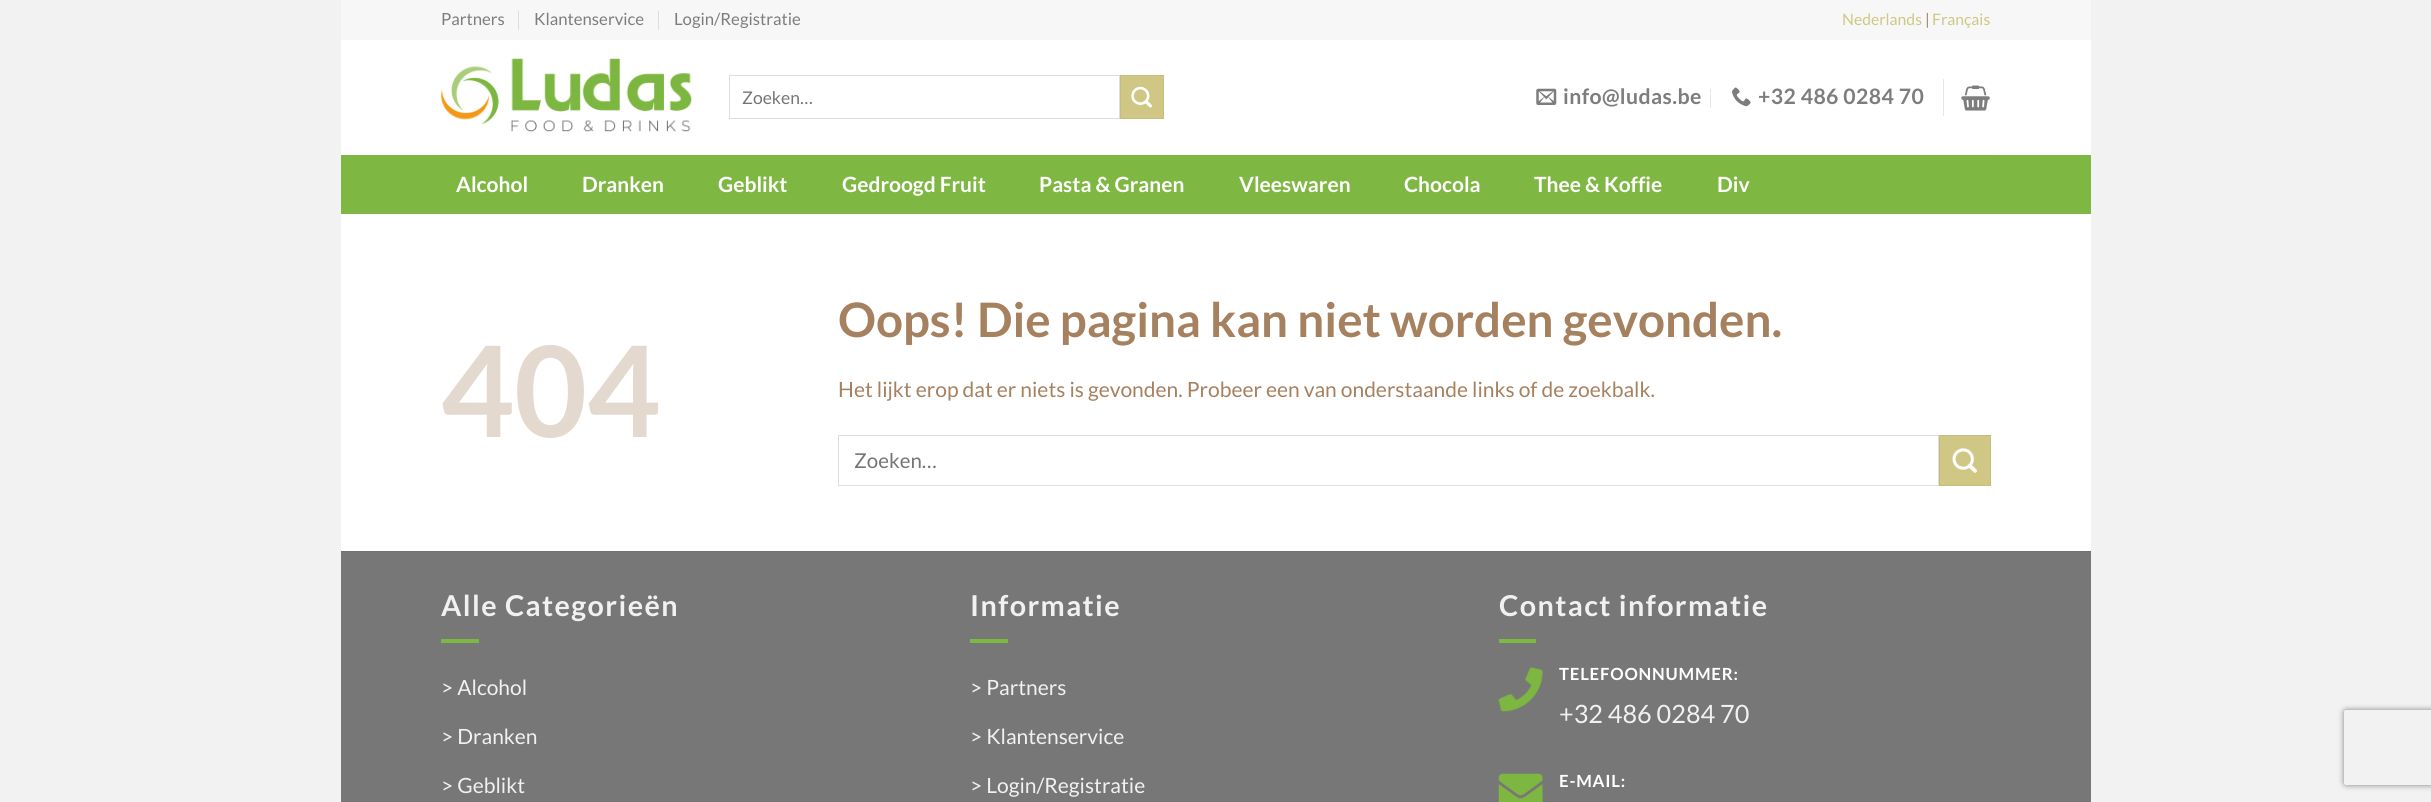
import math
import cairocffi as cairo

surface = cairo.ImageSurface(cairo.FORMAT_RGB24, 2431, 802)
ctx = cairo.Context(surface)
options = cairo.FontOptions()
options.set_hint_metrics(cairo.HINT_METRICS_OFF)
options.set_hint_style(cairo.HINT_STYLE_NONE)
ctx.set_font_options(options)
ctx.set_miter_limit(4)


def rgb(r, g, b):
    ctx.set_source_rgb(r / 255, g / 255, b / 255)


def face(family, size, italic, bold):
    ctx.select_font_face(family, cairo.FONT_SLANT_ITALIC if italic else cairo.FONT_SLANT_NORMAL, cairo.FONT_WEIGHT_BOLD if bold else cairo.FONT_WEIGHT_NORMAL)
    ctx.set_font_size(size)


def label(x, y, s):
    ctx.move_to(x, y)
    ctx.show_text(s)


def tracked(x, y, s, letter, word):
    ctx.move_to(x, y)
    for ch in s:
        ctx.show_text(ch)
        ctx.rel_move_to(letter + word * (ch == ' '), 0)


def rect(x, y, w, h):
    ctx.rectangle(x, y, w, h)
    ctx.fill()


def rrect(x, y, w, h, r):
    ctx.new_sub_path()
    for i, (u, v) in enumerate([(x + w - r, y + h - r), (x + r, y + h - r), (x + r, y + r), (x + w - r, y + r)]):
        ctx.arc(u, v, r, i * math.pi / 2, (i + 1) * math.pi / 2)
    ctx.close_path()


def soft_shadow(x, y, w, h, r, blur, alpha):
    ctx.push_group_with_content(cairo.CONTENT_ALPHA)
    ctx.set_operator(cairo.OPERATOR_SOURCE)
    for i in range(15, -16, -2):
        e = blur * i / 6
        if min(w, h) + 2 * e > 0:
            ctx.set_source_rgba(0, 0, 0, alpha * math.erfc((i - 1) / 8.5) / 2)
            rrect(x - e, y - e, w + 2 * e, h + 2 * e, max(0, min(r + e + blur * .6, min(w, h) / 2 + e)))
            ctx.fill()
    ctx.mask(ctx.pop_group())


def image(path, x, y, w, h):
    ctx.save()
    ctx.set_source_surface(cairo.ImageSurface.create_from_png(path), x, y)
    ctx.rectangle(x, y, w, h)
    ctx.fill()
    ctx.restore()


rgb(242, 242, 242)
ctx.paint()
rgb(255, 255, 255)
rect(341, 40, 1750, 511)
rgb(247, 247, 247)
rect(341, 0, 1750, 40)
face('Lato', 16.75, 0, 0)
rgb(125, 125, 125)
label(441, 25, 'Partners')
rgb(222, 222, 222)
rect(518, 11, 1, 19)
rgb(125, 125, 125)
label(534, 25, 'Klantenservice')
rgb(222, 222, 222)
rect(658, 11, 1, 19)
rgb(125, 125, 125)
label(674, 25, 'Login/Registratie')
face('Lato', 15.75, 0, 0)
rgb(207, 199, 131)
label(1842, 25, 'Nederlands')
rgb(166, 129, 96)
label(1925, 25, '|')
rgb(207, 199, 131)
label(1932, 25, 'Français')
image('image0.png', 441, 58, 251, 74)
ctx.rectangle(729.5, 75.5, 390, 43)
rgb(221, 221, 221)
ctx.set_line_width(1)
ctx.stroke()
face('Lato', 17.5, 0, 0)
rgb(117, 117, 117)
label(742, 104, 'Zoeken…')
rgb(207, 199, 131)
ctx.rectangle(1120.5, 75.5, 43, 43)
ctx.fill_preserve()
rgb(197, 189, 124)
ctx.stroke()
image('image1.png', 1131, 86, 21, 22)
image('image2.png', 1536, 88, 21, 17)
face('Lato', 21.25, 0, 1)
rgb(125, 125, 125)
tracked(1563, 104, 'info@ludas.be', 0.4, 0)
rgb(230, 230, 230)
rect(1710, 89, 1, 19)
image('image3.png', 1731, 87, 20, 20)
rgb(125, 125, 125)
tracked(1758, 104, '+32 486 0284 70', 0.4, 0)
rgb(230, 230, 230)
rect(1943, 79, 1, 37)
image('image4.png', 1961, 85, 29, 26)
rgb(126, 183, 66)
rect(341, 155, 1750, 59)
rgb(130, 178, 69)
rect(441, 155, 1550, 1)
face('Lato', 21, 0, 1)
rgb(255, 255, 255)
label(456, 192, 'Alcohol')
label(582, 192, 'Dranken')
label(718, 192, 'Geblikt')
label(842, 192, 'Gedroogd Fruit')
label(1039, 192, 'Pasta & Granen')
label(1239, 192, 'Vleeswaren')
label(1404, 192, 'Chocola')
label(1534, 192, 'Thee & Koffie')
label(1717, 192, 'Div')
face('Lato', 126, 0, 1)
rgb(228, 217, 207)
label(441, 437, '404')
face('Lato', 47.5, 0, 1)
rgb(166, 129, 96)
label(838, 337, 'Oops! Die pagina kan niet worden gevonden.')
face('Lato', 21, 0, 0)
label(838, 397, 'Het lijkt erop dat er niets is gevonden. Probeer een van onderstaande links of de zoekbalk.')
ctx.rectangle(838.5, 435.5, 1100, 50)
rgb(221, 221, 221)
ctx.stroke()
face('Lato', 20.5, 0, 0)
rgb(117, 117, 117)
label(854, 468, 'Zoeken…')
rgb(207, 199, 131)
ctx.rectangle(1939.5, 435.5, 51, 50)
ctx.fill_preserve()
rgb(197, 189, 124)
ctx.stroke()
image('image5.png', 1952, 448, 25, 25)
rgb(119, 119, 119)
rect(341, 552, 1750, 250)
rgb(113, 113, 113)
rect(341, 551, 1750, 1)
face('Lato', 28.75, 0, 1)
rgb(241, 241, 241)
tracked(441, 616, 'Alle Categorieën', 1.4, 0)
rgb(123, 185, 67)
rect(441, 639, 38, 4)
face('Lato', 21, 0, 0)
rgb(241, 241, 241)
label(441, 695, '> Alcohol')
label(441, 744, '> Dranken')
label(441, 793, '> Geblikt')
face('Lato', 28.75, 0, 1)
tracked(970, 616, 'Informatie', 1.4, 0)
rgb(123, 185, 67)
rect(970, 639, 38, 4)
face('Lato', 21, 0, 0)
rgb(241, 241, 241)
label(970, 695, '> Partners')
label(970, 744, '> Klantenservice')
label(970, 793, '> Login/Registratie')
face('Lato', 28.75, 0, 1)
tracked(1499, 616, 'Contact informatie', 1.4, 0)
rgb(123, 185, 67)
rect(1499, 639, 37, 4)
image('image6.png', 1498, 667, 45, 45)
face('Lato', 16.75, 0, 1)
rgb(255, 255, 255)
tracked(1559, 680, 'TELEFOONNUMMER:', 0.8, 0)
face('Lato', 25.25, 0, 0)
rgb(241, 241, 241)
label(1559, 723, '+32 486 0284 70')
image('image7.png', 1498, 773, 45, 29)
face('Lato', 16.75, 0, 1)
rgb(255, 255, 255)
tracked(1559, 787, 'E-MAIL:', 0.8, 0)
ctx.save()
ctx.set_fill_rule(cairo.FILL_RULE_EVEN_ODD)
ctx.new_path()
ctx.move_to(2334, 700)
ctx.line_to(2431, 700)
ctx.line_to(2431, 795)
ctx.line_to(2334, 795)
ctx.close_path()
ctx.move_to(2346.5, 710)
ctx.line_to(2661.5, 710)
ctx.curve_to(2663, 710, 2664, 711, 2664, 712.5)
ctx.line_to(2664, 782.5)
ctx.curve_to(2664, 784, 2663, 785, 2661.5, 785)
ctx.line_to(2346.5, 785)
ctx.curve_to(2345, 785, 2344, 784, 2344, 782.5)
ctx.line_to(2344, 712.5)
ctx.curve_to(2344, 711, 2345, 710, 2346.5, 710)
ctx.close_path()
ctx.clip()
rgb(128, 128, 128)
soft_shadow(2344, 710, 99, 75, 2.5, 3, 1)
ctx.restore()
surface.write_to_png('render.png')
